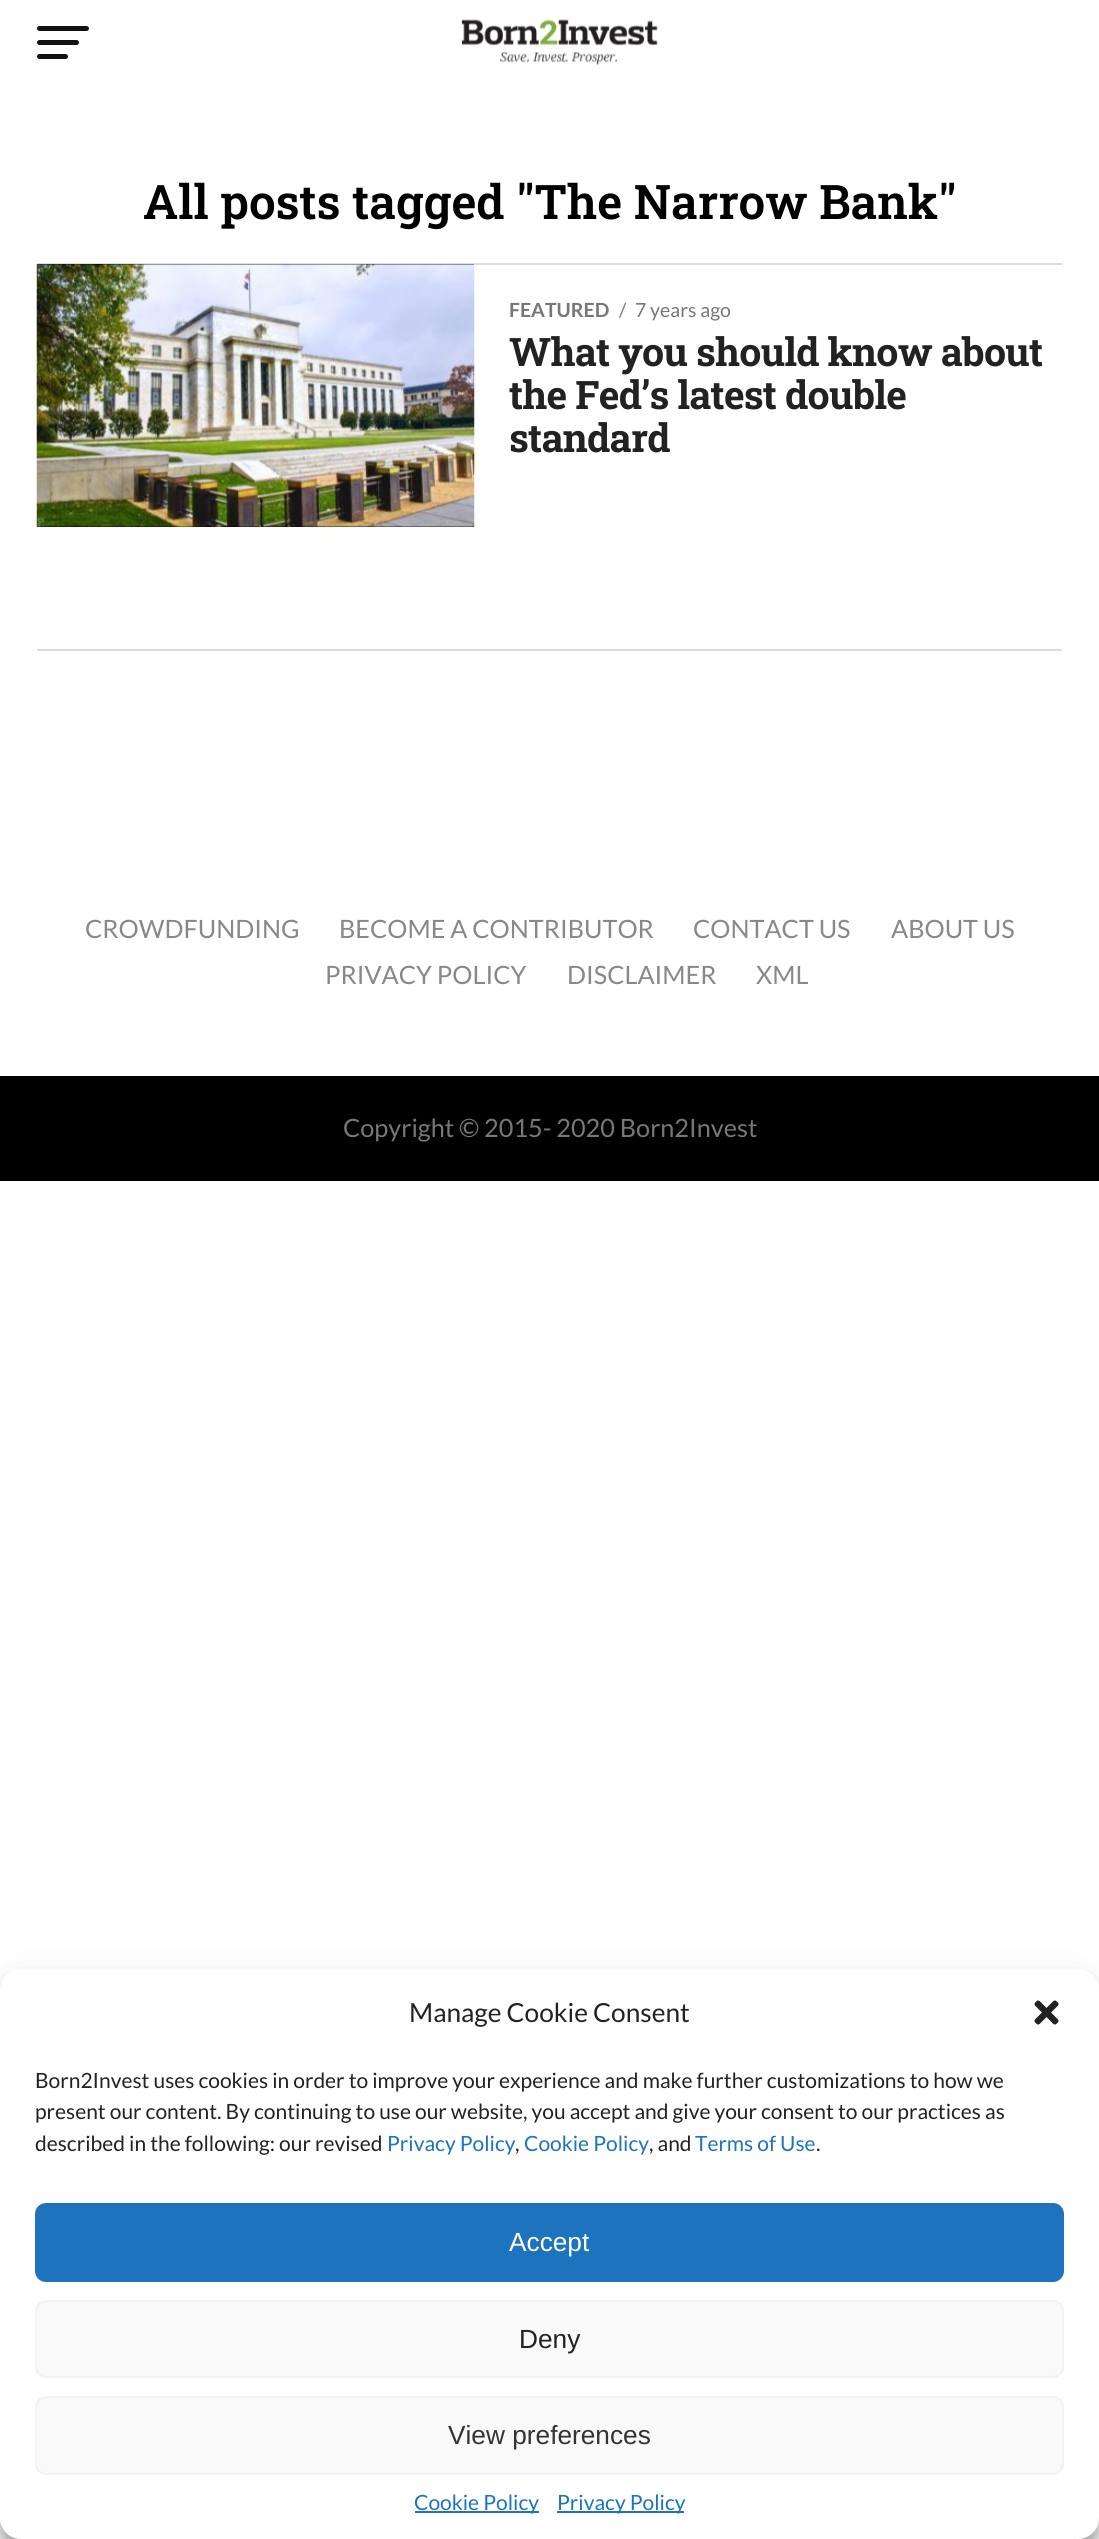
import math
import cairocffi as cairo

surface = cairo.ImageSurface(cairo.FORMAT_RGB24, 1099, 2539)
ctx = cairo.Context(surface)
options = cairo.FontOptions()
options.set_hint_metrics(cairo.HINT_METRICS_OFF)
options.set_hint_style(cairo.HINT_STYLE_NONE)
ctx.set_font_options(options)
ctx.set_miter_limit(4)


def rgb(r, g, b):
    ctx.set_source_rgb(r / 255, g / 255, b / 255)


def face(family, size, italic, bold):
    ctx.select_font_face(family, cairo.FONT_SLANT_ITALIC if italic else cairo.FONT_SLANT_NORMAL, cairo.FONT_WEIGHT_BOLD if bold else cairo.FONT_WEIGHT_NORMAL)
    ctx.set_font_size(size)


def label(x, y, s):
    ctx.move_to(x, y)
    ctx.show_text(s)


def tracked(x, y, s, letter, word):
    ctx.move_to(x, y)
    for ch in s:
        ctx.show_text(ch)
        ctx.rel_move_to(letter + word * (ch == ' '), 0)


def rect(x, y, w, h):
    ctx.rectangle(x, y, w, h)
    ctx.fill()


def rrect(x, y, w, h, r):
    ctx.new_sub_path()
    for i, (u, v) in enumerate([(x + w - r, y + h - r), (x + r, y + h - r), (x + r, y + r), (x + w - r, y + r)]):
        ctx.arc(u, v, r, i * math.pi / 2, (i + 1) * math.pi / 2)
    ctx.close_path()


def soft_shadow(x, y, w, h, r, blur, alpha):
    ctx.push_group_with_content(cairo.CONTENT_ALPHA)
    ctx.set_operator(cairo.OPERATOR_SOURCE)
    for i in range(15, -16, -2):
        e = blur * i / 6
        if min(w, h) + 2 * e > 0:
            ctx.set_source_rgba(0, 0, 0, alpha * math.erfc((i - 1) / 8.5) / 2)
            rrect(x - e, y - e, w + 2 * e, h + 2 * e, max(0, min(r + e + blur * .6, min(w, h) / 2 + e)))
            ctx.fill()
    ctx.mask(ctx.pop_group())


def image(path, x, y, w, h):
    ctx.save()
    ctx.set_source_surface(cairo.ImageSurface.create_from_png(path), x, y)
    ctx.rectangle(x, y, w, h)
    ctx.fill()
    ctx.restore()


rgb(255, 255, 255)
ctx.paint()
rgb(19, 18, 18)
rrect(37, 26, 52, 5, 2.5)
ctx.fill()
rrect(37, 40, 42, 5, 2.5)
ctx.fill()
rrect(37, 54, 31, 5, 2.5)
ctx.fill()
image('image0.png', 461, 19, 197, 47)
face('Roboto Slab SemiBold', 47.6, 0, 0)
rgb(0, 0, 0)
label(143, 219, 'All posts tagged "The Narrow Bank"')
rgb(221, 221, 221)
rect(37, 263, 1025, 2)
rgb(0, 0, 0)
rect(37, 264, 437, 263)
image('image1.png', 36, 264, 439, 263)
face('Lato', 19.5, 0, 1)
rgb(119, 119, 119)
label(509, 317, 'FEATURED')
face('Lato', 19.5, 0, 0)
label(619, 317, '/')
label(635, 317, '7 years ago')
face('Roboto Slab', 39.25, 0, 1)
rgb(34, 34, 34)
tracked(509, 366, 'What you should know about', -0.75, 0)
tracked(509, 409, 'the Fed’s latest double', -0.75, 0)
tracked(509, 452, 'standard', -0.75, 0)
rgb(221, 221, 221)
rect(37, 649, 1025, 2)
face('Lato', 25.25, 0, 0)
rgb(136, 136, 136)
label(85, 938, 'CROWDFUNDING')
label(339, 938, 'BECOME A CONTRIBUTOR')
label(693, 938, 'CONTACT US')
label(891, 938, 'ABOUT US')
label(325, 984, 'PRIVACY POLICY')
label(567, 984, 'DISCLAIMER')
label(756, 984, 'XML')
rgb(0, 0, 0)
rect(0, 1076, 1099, 105)
rgb(119, 119, 119)
label(343, 1137, 'Copyright © 2015- 2020 Born2Invest')
rgb(0, 0, 0)
soft_shadow(0, 1979, 1099, 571, 21, 5, 0.23)
soft_shadow(0, 1986, 1099, 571, 21, 17.5, 0.19)
rgb(255, 255, 255)
rrect(0, 1969, 1099, 570, 21)
ctx.fill()
face('Lato', 26.25, 0, 0)
rgb(34, 34, 34)
label(409, 2022, 'Manage Cookie Consent')
image('image2.png', 1034, 2000, 25, 25)
face('Lato', 21, 0, 0)
label(35, 2088, 'Born2Invest uses cookies in order to improve your experience and make further customizations to how we')
label(35, 2119, 'present our content. By continuing to use our website, you accept and give your consent to our practices as')
label(35, 2151, 'described in the following: our revised')
rgb(30, 115, 190)
label(387, 2151, 'Privacy Policy')
rgb(34, 34, 34)
label(515, 2151, ',')
rgb(30, 115, 190)
label(524, 2151, 'Cookie Policy')
rgb(34, 34, 34)
label(649, 2151, ', and')
rgb(30, 115, 190)
label(695, 2151, 'Terms of Use')
rgb(34, 34, 34)
label(816, 2151, '.')
rgb(30, 115, 190)
rrect(36, 2204, 1027, 77, 10)
ctx.fill_preserve()
ctx.stroke()
face('Liberation Sans', 26.25, 0, 0)
rgb(255, 255, 255)
label(509, 2251, 'Accept')
rgb(249, 249, 249)
rrect(36, 2301, 1027, 76, 10)
ctx.fill_preserve()
rgb(242, 242, 242)
ctx.stroke()
rgb(34, 34, 34)
label(519, 2348, 'Deny')
rgb(249, 249, 249)
rrect(36, 2397, 1027, 77, 10)
ctx.fill_preserve()
rgb(242, 242, 242)
ctx.stroke()
rgb(51, 51, 51)
label(448, 2444, 'View preferences')
rgb(30, 115, 190)
rect(415, 2511, 124, 2)
face('Lato', 21, 0, 0)
label(414, 2510, 'Cookie Policy')
rect(557, 2511, 127, 2)
label(557, 2510, 'Privacy Policy')
surface.write_to_png('render.png')
